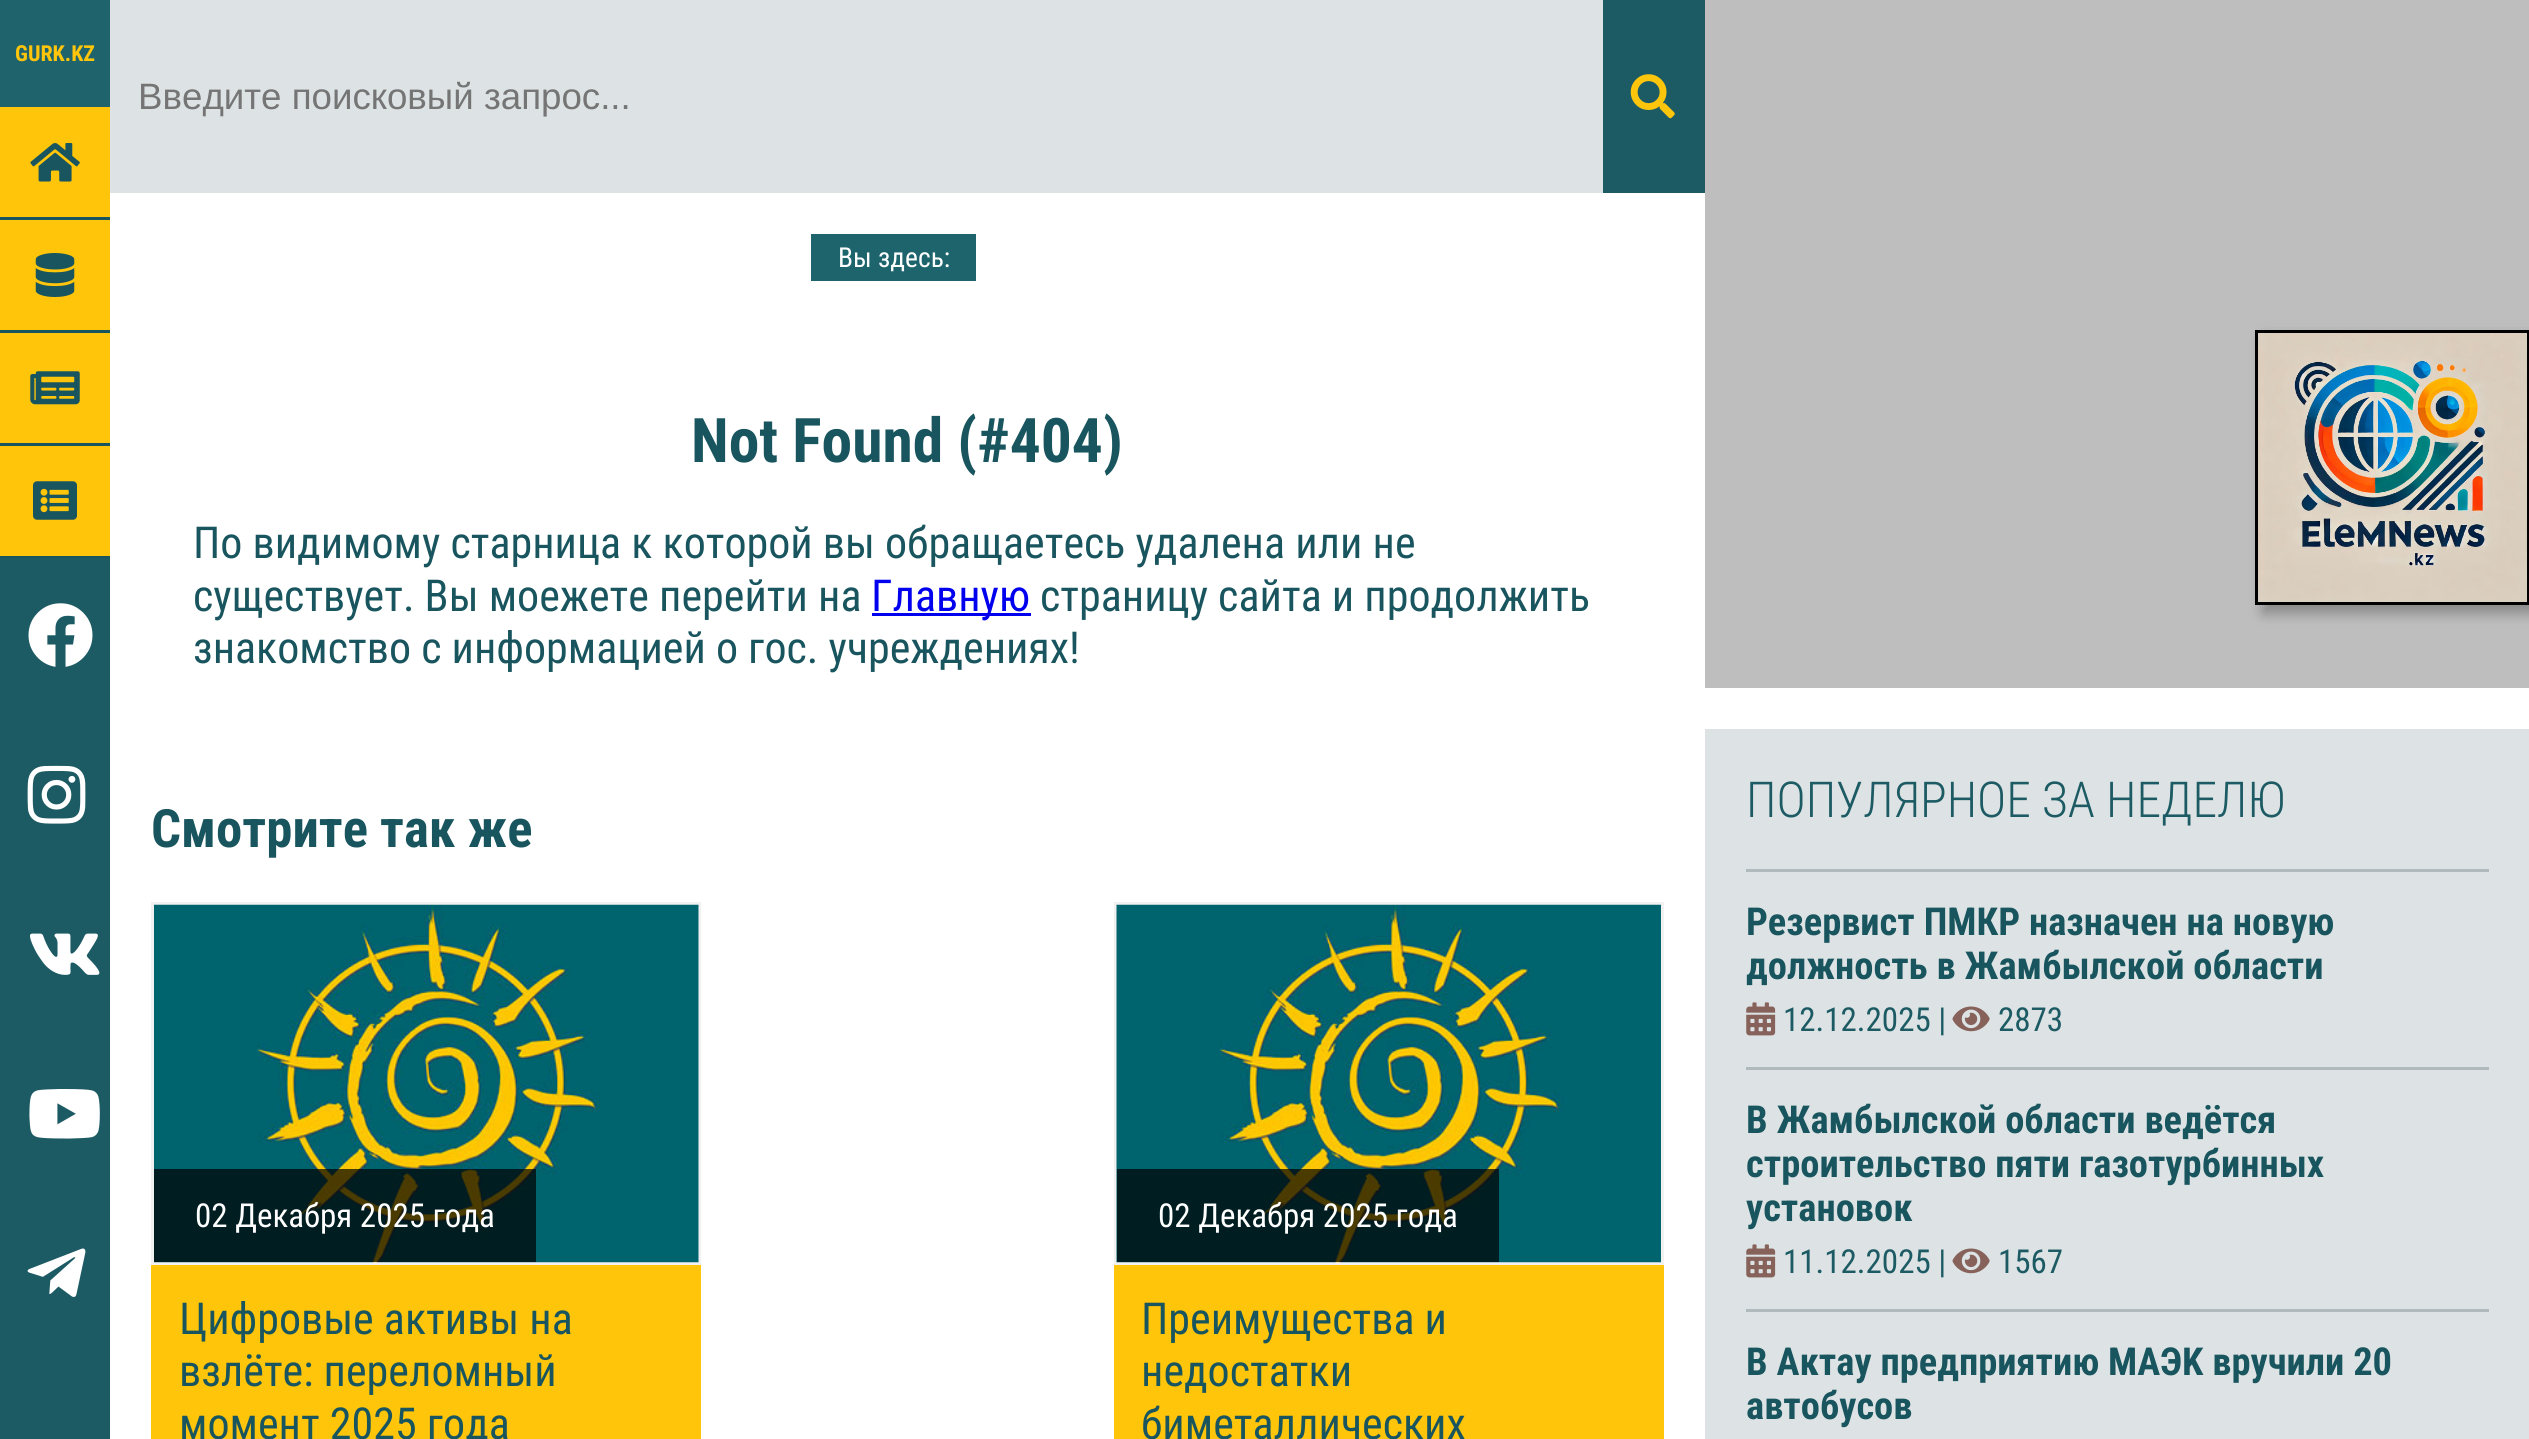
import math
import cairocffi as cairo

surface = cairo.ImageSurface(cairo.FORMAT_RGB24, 2529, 1439)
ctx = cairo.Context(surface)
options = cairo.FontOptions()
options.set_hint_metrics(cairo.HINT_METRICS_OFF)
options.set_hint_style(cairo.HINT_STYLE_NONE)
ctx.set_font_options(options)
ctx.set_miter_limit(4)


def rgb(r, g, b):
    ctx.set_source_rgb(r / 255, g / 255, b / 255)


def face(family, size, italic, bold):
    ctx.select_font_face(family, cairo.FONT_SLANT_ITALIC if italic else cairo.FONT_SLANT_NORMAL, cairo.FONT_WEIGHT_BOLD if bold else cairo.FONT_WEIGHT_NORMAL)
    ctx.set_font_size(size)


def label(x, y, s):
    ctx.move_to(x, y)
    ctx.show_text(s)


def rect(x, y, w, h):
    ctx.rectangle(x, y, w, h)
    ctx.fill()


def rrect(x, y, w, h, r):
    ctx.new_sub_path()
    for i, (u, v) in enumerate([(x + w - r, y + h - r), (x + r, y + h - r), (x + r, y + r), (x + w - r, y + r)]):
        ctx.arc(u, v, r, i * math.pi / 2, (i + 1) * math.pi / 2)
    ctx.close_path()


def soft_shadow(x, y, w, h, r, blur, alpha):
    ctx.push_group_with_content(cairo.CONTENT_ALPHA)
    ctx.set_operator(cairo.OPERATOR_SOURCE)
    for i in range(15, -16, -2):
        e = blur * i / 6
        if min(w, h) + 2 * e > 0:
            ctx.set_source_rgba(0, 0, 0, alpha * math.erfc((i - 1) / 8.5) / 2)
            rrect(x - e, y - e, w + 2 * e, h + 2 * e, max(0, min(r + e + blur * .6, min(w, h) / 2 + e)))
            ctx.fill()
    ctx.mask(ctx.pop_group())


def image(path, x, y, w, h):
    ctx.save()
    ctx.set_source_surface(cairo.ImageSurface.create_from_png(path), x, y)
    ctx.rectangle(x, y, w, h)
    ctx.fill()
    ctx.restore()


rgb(255, 255, 255)
ctx.paint()
rgb(29, 91, 100)
rect(0, 558, 110, 881)
rgb(31, 99, 109)
rect(0, 0, 110, 107)
face('Roboto Condensed', 22, 0, 1)
rgb(254, 197, 11)
label(15, 61, 'GURK.KZ')
rgb(25, 85, 94)
rect(0, 217, 110, 3)
rgb(254, 197, 11)
rect(0, 107, 110, 110)
image('image0.png', 30, 143, 50, 39)
rgb(25, 85, 94)
rect(0, 330, 110, 3)
rgb(254, 197, 11)
rect(0, 220, 110, 110)
image('image1.png', 35, 253, 40, 44)
rgb(25, 85, 94)
rect(0, 443, 110, 3)
rgb(254, 197, 11)
rect(0, 333, 110, 110)
image('image2.png', 30, 371, 50, 34)
rgb(25, 85, 94)
rect(0, 556, 110, 2)
rgb(254, 197, 11)
rect(0, 446, 110, 110)
image('image3.png', 33, 481, 44, 39)
image('image4.png', 28, 603, 65, 64)
image('image5.png', 27, 765, 59, 59)
image('image6.png', 30, 933, 70, 42)
image('image7.png', 29, 1089, 71, 50)
image('image8.png', 27, 1248, 59, 49)
rgb(190, 190, 190)
rect(1705, 0, 824, 688)
rgb(0, 0, 0)
soft_shadow(2263, 338, 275, 275, 0, 7, 0.3)
ctx.rectangle(2256.5, 331.5, 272, 272)
rgb(0, 0, 0)
ctx.set_line_width(3)
ctx.stroke()
image('image9.png', 2258, 333, 269, 269)
rgb(221, 227, 228)
rect(110, 0, 1493, 193)
face('Liberation Sans', 36.7, 0, 0)
rgb(117, 117, 117)
label(138, 109, 'Введите поиcковый запрос...')
rgb(29, 91, 100)
rect(1603, 0, 102, 193)
image('image10.png', 1630, 74, 45, 45)
rgb(29, 100, 109)
rect(811, 234, 165, 47)
face('Roboto Condensed', 27.5, 0, 0)
rgb(255, 255, 255)
label(838, 267, 'Вы здесь:')
face('Roboto Condensed', 61.5, 0, 1)
rgb(25, 85, 94)
label(691, 462, 'Not Found (#404)')
face('Roboto Condensed', 44, 0, 0)
label(193, 558, 'По видимому старница к которой вы обращаетесь удалена или не')
label(193, 611, 'существует. Вы моежете перейти на')
rgb(0, 0, 238)
rect(872, 613, 159, 3)
label(871, 611, 'Главную')
rgb(25, 85, 94)
label(1040, 611, 'страницу сайта и продолжить')
label(193, 663, 'знакомство с информацией о гос. учреждениях!')
face('Roboto Condensed', 52.75, 0, 1)
label(151, 847, 'Смотрите так же')
ctx.rectangle(152.5, 903.5, 547, 360)
rgb(241, 241, 241)
ctx.stroke()
image('image11.png', 154, 904, 545, 359)
ctx.set_source_rgba(0, 0, 0, 0.7)
rect(154, 1169, 382, 93)
face('Roboto Condensed', 33, 0, 0)
rgb(255, 255, 255)
label(195, 1227, '02 Декабря 2025 года')
rgb(254, 197, 11)
rect(151, 1265, 550, 174)
face('Roboto Condensed', 44, 0, 0)
rgb(25, 85, 94)
label(179, 1334, 'Цифровые активы на')
label(179, 1386, 'взлёте: переломный')
label(179, 1439, 'момент 2025 года')
ctx.rectangle(1115.5, 903.5, 547, 360)
rgb(241, 241, 241)
ctx.stroke()
image('image12.png', 1116, 904, 545, 359)
ctx.set_source_rgba(0, 0, 0, 0.7)
rect(1117, 1169, 382, 93)
face('Roboto Condensed', 33, 0, 0)
rgb(255, 255, 255)
label(1158, 1227, '02 Декабря 2025 года')
rgb(254, 197, 11)
rect(1114, 1265, 550, 174)
face('Roboto Condensed', 44, 0, 0)
rgb(25, 85, 94)
label(1141, 1334, 'Преимущества и')
label(1141, 1386, 'недостатки')
label(1141, 1439, 'биметаллических')
rgb(221, 227, 228)
rect(1705, 729, 824, 710)
rgb(176, 186, 188)
rect(1746, 869, 743, 3)
face('Roboto Condensed Light', 49.5, 0, 0)
rgb(29, 91, 100)
label(1746, 817, 'ПОПУЛЯРНОЕ ЗА НЕДЕЛЮ')
rgb(176, 186, 188)
rect(1746, 1067, 743, 3)
face('Roboto Condensed', 38.5, 0, 1)
rgb(25, 85, 94)
label(1746, 935, 'Резервист ПМКР назначен на новую')
label(1746, 979, 'должность в Жамбылской области')
image('image13.png', 1746, 1002, 30, 34)
face('Roboto Condensed', 33, 0, 0)
rgb(29, 91, 100)
label(1783, 1031, '12.12.2025 |')
image('image14.png', 1952, 1006, 38, 26)
label(1998, 1031, '2873')
rgb(176, 186, 188)
rect(1746, 1309, 743, 3)
face('Roboto Condensed', 38.5, 0, 1)
rgb(25, 85, 94)
label(1746, 1133, 'В Жамбылской области ведётся')
label(1746, 1177, 'строительство пяти газотурбинных')
label(1746, 1221, 'установок')
image('image13.png', 1746, 1244, 30, 34)
face('Roboto Condensed', 33, 0, 0)
rgb(29, 91, 100)
label(1783, 1273, '11.12.2025 |')
image('image14.png', 1952, 1248, 38, 26)
label(1998, 1273, '1567')
face('Roboto Condensed', 38.5, 0, 1)
rgb(25, 85, 94)
label(1746, 1375, 'В Актау предприятию MAЭK вручили 20')
label(1746, 1419, 'автобусов')
surface.write_to_png('render.png')
